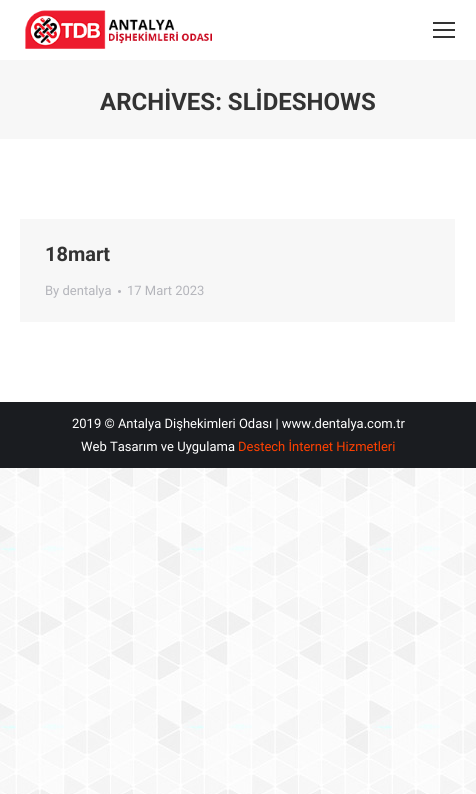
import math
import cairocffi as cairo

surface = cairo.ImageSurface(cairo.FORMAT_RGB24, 476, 794)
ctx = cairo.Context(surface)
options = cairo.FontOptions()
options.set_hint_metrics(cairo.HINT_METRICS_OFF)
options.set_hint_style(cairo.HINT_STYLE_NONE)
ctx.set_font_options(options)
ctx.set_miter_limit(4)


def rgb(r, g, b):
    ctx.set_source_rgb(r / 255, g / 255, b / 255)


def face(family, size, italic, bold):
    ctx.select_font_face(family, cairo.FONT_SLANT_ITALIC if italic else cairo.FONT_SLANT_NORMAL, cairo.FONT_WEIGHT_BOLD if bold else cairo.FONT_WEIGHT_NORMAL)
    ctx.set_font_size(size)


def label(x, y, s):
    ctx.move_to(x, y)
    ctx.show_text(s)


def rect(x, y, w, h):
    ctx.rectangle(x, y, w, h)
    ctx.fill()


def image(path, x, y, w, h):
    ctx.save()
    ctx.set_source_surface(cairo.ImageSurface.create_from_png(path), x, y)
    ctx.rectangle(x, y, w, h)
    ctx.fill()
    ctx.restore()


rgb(255, 255, 255)
ctx.paint()
image('image0.png', 0, 468, 476, 326)
image('image1.png', 25, 10, 187, 39)
rgb(51, 51, 51)
rect(433, 22, 22, 2)
rect(433, 29, 22, 2)
rect(433, 36, 22, 2)
rgb(247, 247, 247)
rect(0, 60, 476, 79)
face('Roboto', 24, 0, 1)
rgb(51, 51, 51)
label(100, 110, 'ARCHİVES: SLİDESHOWS')
rgb(247, 247, 247)
rect(20, 219, 435, 103)
face('Roboto', 20, 0, 1)
rgb(51, 51, 51)
label(45, 261, '18mart')
face('Roboto', 13, 0, 0)
rgb(180, 181, 187)
label(45, 295, 'By dentalya')
ctx.new_path()
ctx.arc(119.5, 291.5, 1.5, 0, 2 * math.pi)
ctx.fill()
label(127, 295, '17 Mart 2023')
rgb(26, 28, 32)
rect(0, 402, 476, 66)
rgb(255, 255, 255)
label(72, 428, '2019 © Antalya Dişhekimleri Odası | www.dentalya.com.tr')
label(81, 451, 'Web Tasarım ve Uygulama')
rgb(255, 64, 0)
label(238, 451, 'Destech İnternet Hizmetleri')
surface.write_to_png('render.png')
